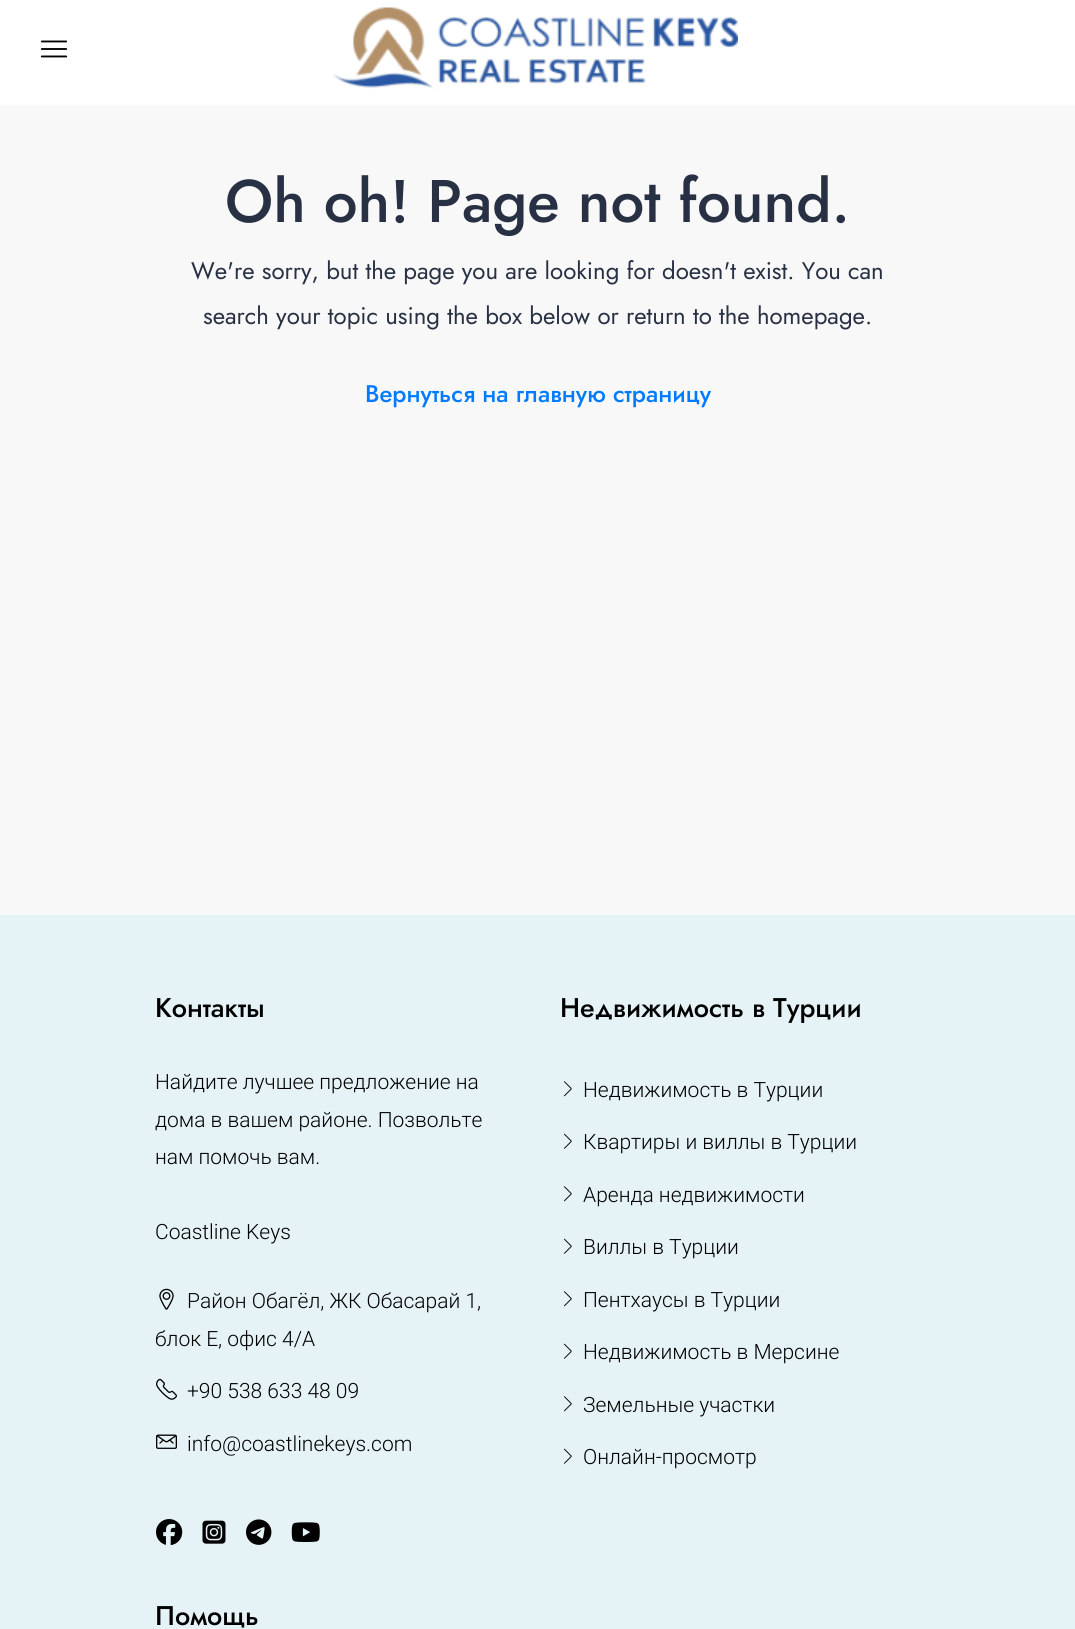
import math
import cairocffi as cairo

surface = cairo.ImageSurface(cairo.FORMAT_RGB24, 1075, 1629)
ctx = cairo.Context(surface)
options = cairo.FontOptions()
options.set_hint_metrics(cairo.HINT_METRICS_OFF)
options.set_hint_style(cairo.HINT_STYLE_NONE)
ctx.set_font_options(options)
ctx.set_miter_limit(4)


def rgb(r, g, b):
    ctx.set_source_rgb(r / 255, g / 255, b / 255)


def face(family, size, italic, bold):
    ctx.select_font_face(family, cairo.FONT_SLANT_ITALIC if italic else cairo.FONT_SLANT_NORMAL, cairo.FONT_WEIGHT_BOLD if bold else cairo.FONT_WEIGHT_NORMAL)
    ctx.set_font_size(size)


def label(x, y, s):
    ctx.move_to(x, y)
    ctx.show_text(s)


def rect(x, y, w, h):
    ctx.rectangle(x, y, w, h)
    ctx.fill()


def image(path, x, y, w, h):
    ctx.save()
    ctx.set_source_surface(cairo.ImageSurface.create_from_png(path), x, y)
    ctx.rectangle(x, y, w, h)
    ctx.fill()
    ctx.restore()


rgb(248, 248, 248)
ctx.paint()
rgb(255, 255, 255)
rect(0, 0, 1075, 105)
image('image0.png', 40, 40, 28, 18)
image('image1.png', 333, 7, 405, 83)
face('Jost Medium', 60, 0, 0)
rgb(40, 48, 68)
label(225, 222, 'Oh oh! Page not found.')
face('Jost', 24, 0, 0)
label(191, 279, 'We\'re sorry, but the page you are looking for doesn\'t exist. You can')
label(203, 324, 'search your topic using the box below or return to the homepage.')
face('Jost Medium', 24, 0, 0)
rgb(0, 123, 255)
label(365, 402, 'Вернуться на главную страницу')
rgb(229, 242, 246)
rect(0, 915, 1075, 714)
face('Jost Medium', 27, 0, 0)
rgb(0, 0, 0)
label(155, 1017, 'Контакты')
face('Roboto Light', 21, 0, 0)
label(155, 1089, 'Найдите лучшее предложение на')
label(155, 1127, 'дома в вашем районе. Позвольте')
label(155, 1164, 'нам помочь вам.')
label(155, 1239, 'Coastline Keys')
image('image2.png', 159, 1288, 15, 22)
label(187, 1308, 'Район Обагёл, ЖК Обасарай 1,')
label(155, 1346, 'блок Е, офис 4/А')
image('image3.png', 156, 1378, 21, 22)
label(187, 1398, '+90 538 633 48 09')
image('image4.png', 156, 1434, 21, 15)
label(187, 1451, 'info@coastlinekeys.com')
image('image5.png', 156, 1519, 27, 27)
image('image6.png', 202, 1520, 24, 24)
image('image7.png', 246, 1519, 26, 26)
image('image8.png', 291, 1522, 29, 20)
face('Jost Medium', 27, 0, 0)
label(560, 1017, 'Недвижимость в Турции')
image('image9.png', 564, 1081, 8, 16)
face('Roboto Light', 21, 0, 0)
label(583, 1097, 'Недвижимость в Турции')
image('image10.png', 564, 1133, 8, 16)
label(583, 1149, 'Квартиры и виллы в Турции')
image('image9.png', 564, 1186, 8, 16)
label(583, 1202, 'Аренда недвижимости')
image('image10.png', 564, 1238, 8, 16)
label(583, 1254, 'Виллы в Турции')
image('image9.png', 564, 1291, 8, 16)
label(583, 1307, 'Пентхаусы в Турции')
image('image10.png', 564, 1343, 8, 16)
label(583, 1359, 'Недвижимость в Мерсине')
image('image9.png', 564, 1396, 8, 16)
label(583, 1412, 'Земельные участки')
image('image10.png', 564, 1448, 8, 16)
label(583, 1464, 'Онлайн-просмотр')
face('Jost Medium', 27, 0, 0)
label(155, 1625, 'Помощь')
surface.write_to_png('render.png')
